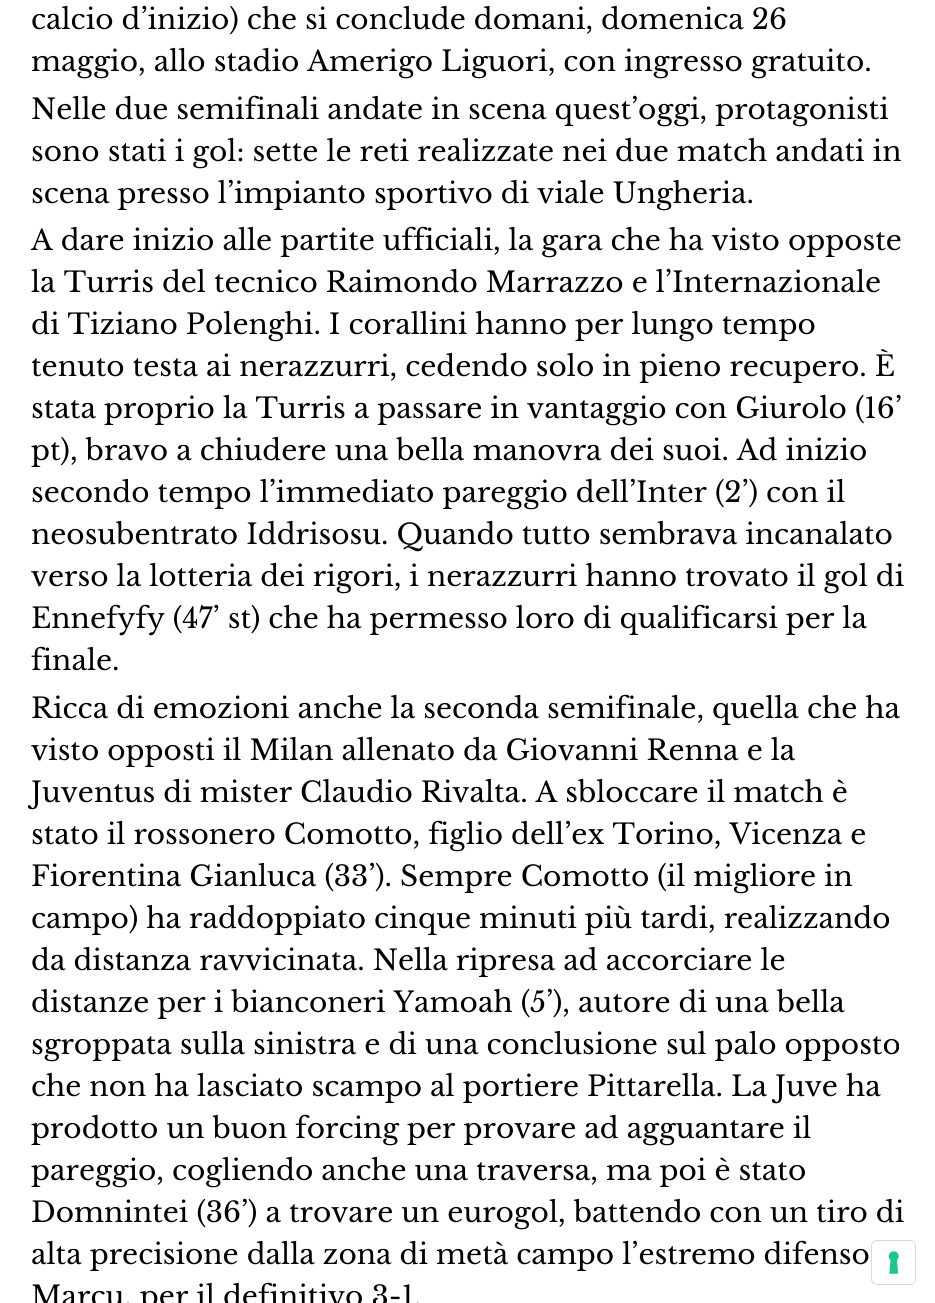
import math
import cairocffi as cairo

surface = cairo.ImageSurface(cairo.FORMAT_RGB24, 935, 1303)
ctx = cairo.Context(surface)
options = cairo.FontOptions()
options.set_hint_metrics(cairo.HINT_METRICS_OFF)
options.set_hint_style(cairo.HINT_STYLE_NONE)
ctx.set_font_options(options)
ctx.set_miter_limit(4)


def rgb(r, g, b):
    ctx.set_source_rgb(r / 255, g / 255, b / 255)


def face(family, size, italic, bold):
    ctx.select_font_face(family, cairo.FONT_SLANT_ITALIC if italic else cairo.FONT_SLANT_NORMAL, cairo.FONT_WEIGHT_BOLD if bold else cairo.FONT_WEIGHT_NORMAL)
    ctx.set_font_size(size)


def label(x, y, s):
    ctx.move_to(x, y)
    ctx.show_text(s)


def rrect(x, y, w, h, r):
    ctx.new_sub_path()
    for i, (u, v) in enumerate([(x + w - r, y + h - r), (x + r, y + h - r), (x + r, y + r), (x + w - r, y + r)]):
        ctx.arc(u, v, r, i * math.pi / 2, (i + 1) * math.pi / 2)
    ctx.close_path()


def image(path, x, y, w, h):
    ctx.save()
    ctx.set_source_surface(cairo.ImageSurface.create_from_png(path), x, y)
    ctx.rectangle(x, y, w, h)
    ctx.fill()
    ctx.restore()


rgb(255, 255, 255)
ctx.paint()
face('Libre Baskerville', 28, 0, 0)
rgb(0, 0, 0)
label(31, 29, 'calcio d’inizio) che si conclude domani, domenica 26')
label(31, 71, 'maggio, allo stadio Amerigo Liguori, con ingresso gratuito.')
label(31, 119, 'Nelle due semifinali andate in scena quest’oggi, protagonisti')
label(31, 161, 'sono stati i gol: sette le reti realizzate nei due match andati in')
label(31, 203, 'scena presso l’impianto sportivo di viale Ungheria.')
label(31, 250, 'A dare inizio alle partite ufficiali, la gara che ha visto opposte')
label(31, 292, 'la Turris del tecnico Raimondo Marrazzo e l’Internazionale')
label(31, 334, 'di Tiziano Polenghi. I corallini hanno per lungo tempo')
label(31, 376, 'tenuto testa ai nerazzurri, cedendo solo in pieno recupero. È')
label(31, 418, 'stata proprio la Turris a passare in vantaggio con Giurolo (16’')
label(31, 460, 'pt), bravo a chiudere una bella manovra dei suoi. Ad inizio')
label(31, 502, 'secondo tempo l’immediato pareggio dell’Inter (2’) con il')
label(31, 544, 'neosubentrato Iddrisosu. Quando tutto sembrava incanalato')
label(31, 586, 'verso la lotteria dei rigori, i nerazzurri hanno trovato il gol di')
label(31, 628, 'Ennefyfy (47’ st) che ha permesso loro di qualificarsi per la')
label(31, 670, 'finale.')
label(31, 718, 'Ricca di emozioni anche la seconda semifinale, quella che ha')
label(31, 760, 'visto opposti il Milan allenato da Giovanni Renna e la')
label(31, 802, 'Juventus di mister Claudio Rivalta. A sbloccare il match è')
label(31, 844, 'stato il rossonero Comotto, figlio dell’ex Torino, Vicenza e')
label(31, 886, 'Fiorentina Gianluca (33’). Sempre Comotto (il migliore in')
label(31, 928, 'campo) ha raddoppiato cinque minuti più tardi, realizzando')
label(31, 970, 'da distanza ravvicinata. Nella ripresa ad accorciare le')
label(31, 1012, 'distanze per i bianconeri Yamoah (5’), autore di una bella')
label(31, 1054, 'sgroppata sulla sinistra e di una conclusione sul palo opposto')
label(31, 1096, 'che non ha lasciato scampo al portiere Pittarella. La Juve ha')
label(31, 1138, 'prodotto un buon forcing per provare ad agguantare il')
label(31, 1180, 'pareggio, cogliendo anche una traversa, ma poi è stato')
label(31, 1222, 'Domnintei (36’) a trovare un eurogol, battendo con un tiro di')
label(31, 1264, 'alta precisione dalla zona di metà campo l’estremo difenso')
label(31, 1306, 'Marcu, per il definitivo 3-1.')
rrect(871.5, 1240.5, 44, 44, 5.5)
ctx.set_source_rgba(0, 0, 0, 0.15)
ctx.set_line_width(1)
ctx.stroke()
rgb(255, 255, 255)
rrect(873, 1241, 42, 43, 5)
ctx.fill()
image('image0.png', 888, 1251, 11, 23)
surface.write_to_png('render.png')
